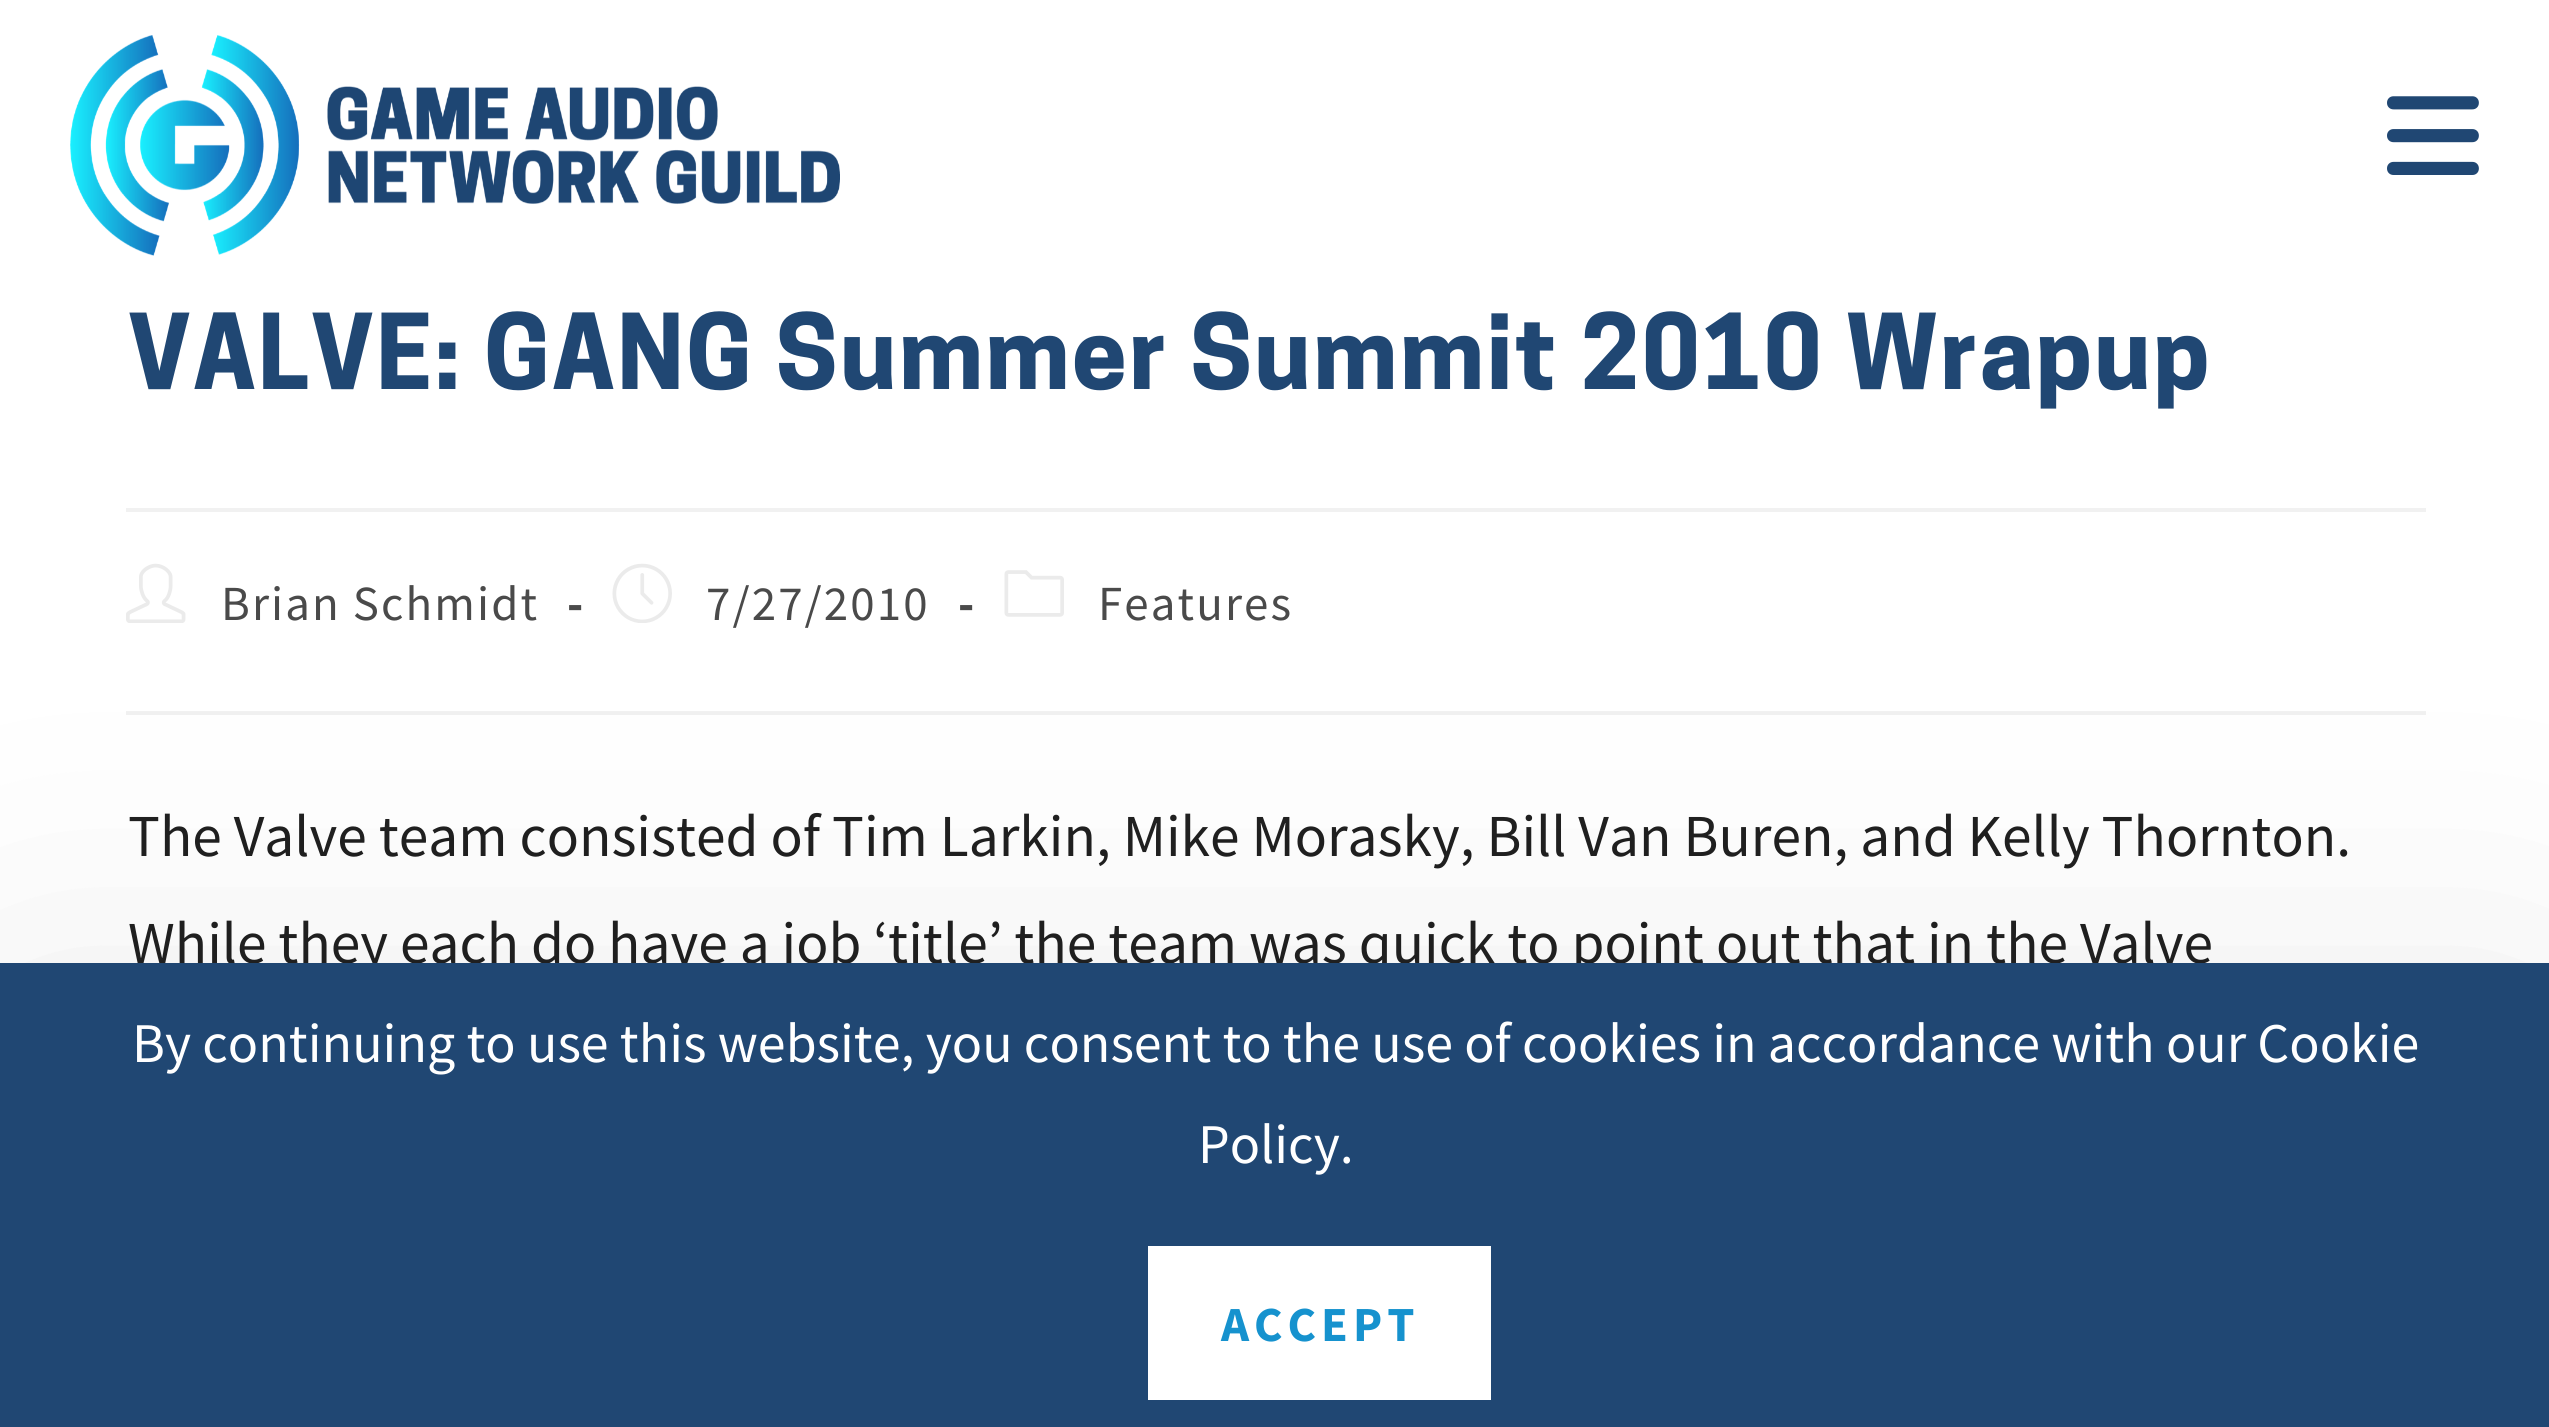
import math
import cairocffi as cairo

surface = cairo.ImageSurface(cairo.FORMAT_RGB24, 2549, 1427)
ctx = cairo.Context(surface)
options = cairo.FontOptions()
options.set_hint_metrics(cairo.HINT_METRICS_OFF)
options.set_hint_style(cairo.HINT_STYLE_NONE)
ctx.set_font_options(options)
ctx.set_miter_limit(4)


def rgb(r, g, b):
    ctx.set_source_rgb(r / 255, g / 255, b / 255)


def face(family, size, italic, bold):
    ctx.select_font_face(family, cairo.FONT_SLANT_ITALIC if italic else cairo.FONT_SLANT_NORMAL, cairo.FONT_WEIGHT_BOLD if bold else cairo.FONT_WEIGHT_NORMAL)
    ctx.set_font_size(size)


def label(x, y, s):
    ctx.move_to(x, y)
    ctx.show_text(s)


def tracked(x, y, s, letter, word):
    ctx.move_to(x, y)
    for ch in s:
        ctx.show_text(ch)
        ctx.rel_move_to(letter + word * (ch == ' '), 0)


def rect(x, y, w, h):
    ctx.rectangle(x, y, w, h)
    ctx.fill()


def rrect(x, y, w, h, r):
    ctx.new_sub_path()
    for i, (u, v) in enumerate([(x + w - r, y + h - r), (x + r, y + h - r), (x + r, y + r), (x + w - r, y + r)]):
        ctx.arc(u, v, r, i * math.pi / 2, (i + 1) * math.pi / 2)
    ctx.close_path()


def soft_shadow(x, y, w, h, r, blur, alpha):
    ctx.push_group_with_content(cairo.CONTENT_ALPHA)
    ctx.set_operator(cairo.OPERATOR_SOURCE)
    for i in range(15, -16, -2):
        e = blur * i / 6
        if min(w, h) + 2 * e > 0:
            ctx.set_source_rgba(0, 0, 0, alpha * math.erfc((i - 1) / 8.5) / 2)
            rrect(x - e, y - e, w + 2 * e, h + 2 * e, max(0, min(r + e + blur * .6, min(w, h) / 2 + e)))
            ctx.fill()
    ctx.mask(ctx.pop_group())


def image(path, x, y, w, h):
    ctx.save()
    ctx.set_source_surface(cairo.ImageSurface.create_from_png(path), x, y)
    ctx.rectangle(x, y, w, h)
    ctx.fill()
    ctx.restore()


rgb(255, 255, 255)
ctx.paint()
image('image0.png', 70, 35, 770, 221)
image('image1.png', 2387, 96, 92, 79)
rgb(241, 241, 241)
rect(126, 508, 2300, 4)
face('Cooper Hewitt', 98, 0, 1)
rgb(32, 71, 115)
tracked(128, 389, 'VALVE: GANG Summer Summit 2010 Wrapup', 2.1, 0)
rgb(241, 241, 241)
rect(126, 711, 2300, 4)
image('image2.png', 126, 563, 60, 60)
face('Source Sans Pro', 49, 0, 0)
rgb(74, 74, 74)
tracked(221, 620, 'Brian Schmidt', 2.1, 0)
face('Source Sans Pro', 49, 0, 1)
tracked(567, 620, '-', 2.1, 0)
image('image3.png', 612, 563, 60, 60)
face('Source Sans Pro', 49, 0, 0)
tracked(706, 620, '7/27/2010', 2.1, 0)
face('Source Sans Pro', 49, 0, 1)
tracked(958, 620, '-', 2.1, 0)
image('image4.png', 1004, 570, 60, 47)
face('Source Sans Pro', 49, 0, 0)
tracked(1098, 620, 'Features', 2.1, 0)
face('Source Sans Pro', 59.5, 0, 0)
rgb(32, 32, 32)
label(128, 856, 'The Valve team consisted of Tim Larkin, Mike Morasky, Bill Van Buren, and Kelly Thornton.')
label(128, 963, 'While they each do have a job ‘title’ the team was quick to point out that in the Valve')
rgb(0, 0, 0)
soft_shadow(0, 1033, 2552, 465, 0, 175, 0.1)
rgb(32, 71, 115)
rect(0, 963, 2549, 464)
face('Source Sans Pro', 56, 0, 0)
rgb(255, 255, 255)
label(132, 1062, 'By continuing to use this website, you consent to the use of cookies in accordance with our Cookie')
label(1198, 1163, 'Policy.')
rect(1148, 1246, 343, 154)
face('Source Sans Pro', 49, 0, 1)
rgb(22, 146, 206)
tracked(1221, 1341, 'ACCEPT', 5, 0)
surface.write_to_png('render.png')
